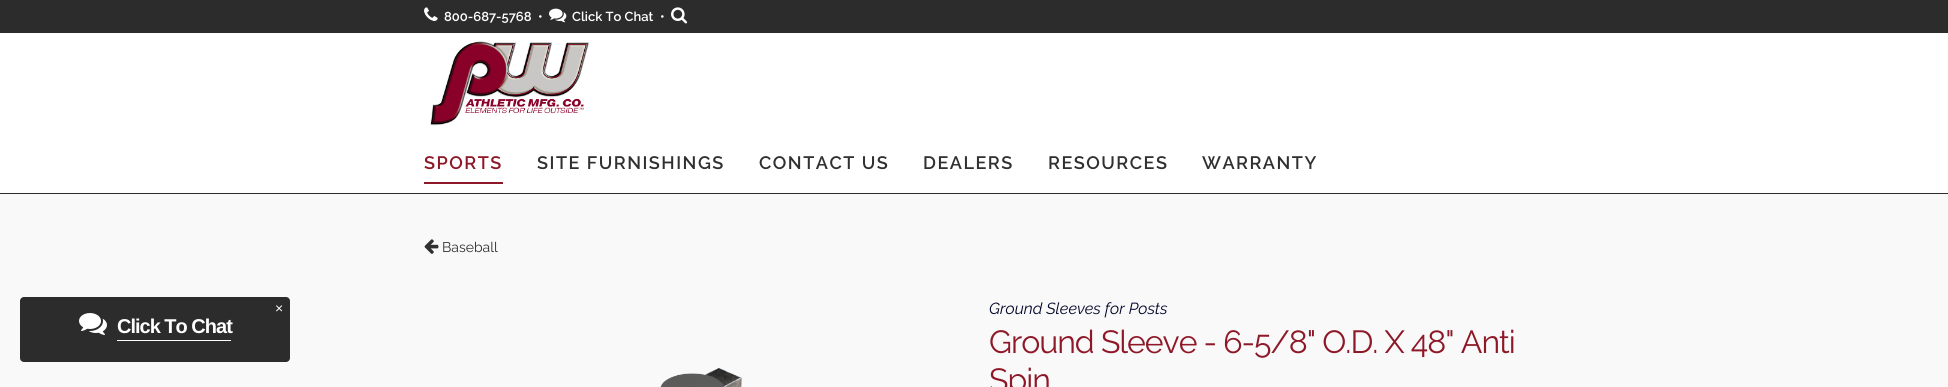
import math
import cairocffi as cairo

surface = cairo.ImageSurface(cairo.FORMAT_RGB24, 1948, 387)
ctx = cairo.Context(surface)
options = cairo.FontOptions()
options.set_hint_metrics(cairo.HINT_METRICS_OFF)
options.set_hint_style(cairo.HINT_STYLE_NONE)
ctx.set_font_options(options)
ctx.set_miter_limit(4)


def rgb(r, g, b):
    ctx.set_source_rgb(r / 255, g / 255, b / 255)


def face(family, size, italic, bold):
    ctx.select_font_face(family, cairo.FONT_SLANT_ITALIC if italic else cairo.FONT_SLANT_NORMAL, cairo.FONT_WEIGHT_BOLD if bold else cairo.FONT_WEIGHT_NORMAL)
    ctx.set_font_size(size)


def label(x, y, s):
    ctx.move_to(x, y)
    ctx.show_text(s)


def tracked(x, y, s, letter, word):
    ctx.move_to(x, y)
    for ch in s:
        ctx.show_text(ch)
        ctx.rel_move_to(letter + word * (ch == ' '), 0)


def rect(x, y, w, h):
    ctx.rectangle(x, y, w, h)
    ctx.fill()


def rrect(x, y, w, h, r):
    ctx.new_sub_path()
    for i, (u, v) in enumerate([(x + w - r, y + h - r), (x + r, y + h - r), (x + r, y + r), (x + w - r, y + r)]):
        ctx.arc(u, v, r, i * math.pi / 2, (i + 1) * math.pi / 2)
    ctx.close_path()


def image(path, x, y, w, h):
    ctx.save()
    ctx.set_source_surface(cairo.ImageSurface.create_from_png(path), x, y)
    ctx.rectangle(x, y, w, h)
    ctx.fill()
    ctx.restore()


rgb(255, 255, 255)
ctx.paint()
rgb(249, 249, 249)
rect(0, 194, 1948, 193)
rgb(44, 44, 44)
rrect(20, 297, 270, 65, 4)
ctx.fill()
face('Liberation Sans', 14, 0, 0)
rgb(255, 255, 255)
label(275, 313, '×')
image('image0.png', 79, 313, 28, 22)
face('Liberation Sans', 20, 0, 1)
tracked(117, 333, 'Click To Chat', -1, 0)
rect(117, 340, 114, 1)
rgb(44, 44, 44)
rect(0, 0, 1948, 33)
image('image1.png', 424, 7, 14, 14)
face('Raleway SemiBold', 13, 0, 0)
rgb(255, 255, 255)
label(444, 21, '800-687-5768  •')
image('image2.png', 549, 8, 18, 15)
label(572, 21, 'Click To Chat')
label(660, 21, '•')
image('image3.png', 671, 7, 17, 17)
rgb(44, 44, 44)
rect(0, 193, 1948, 1)
image('image4.png', 430, 41, 159, 85)
face('Raleway SemiBold', 18, 0, 0)
rgb(141, 24, 39)
tracked(424, 169, 'SPORTS', 1.5, 0)
rect(424, 182, 79, 2)
rgb(48, 48, 48)
tracked(537, 169, 'SITE FURNISHINGS', 1.5, 0)
tracked(759, 169, 'CONTACT US', 1.5, 0)
tracked(923, 169, 'DEALERS', 1.5, 0)
tracked(1048, 169, 'RESOURCES', 1.5, 0)
tracked(1202, 169, 'WARRANTY', 1.5, 0)
image('image5.png', 424, 239, 15, 15)
face('Raleway', 14, 0, 0)
label(442, 252, 'Baseball')
image('image6.png', 660, 368, 82, 19)
face('Raleway Thin', 16, 1, 0)
rgb(1, 6, 42)
label(989, 314, 'Ground Sleeves for Posts')
face('Raleway', 32, 0, 0)
rgb(141, 24, 39)
tracked(989, 353, 'Ground Sleeve - 6-5/8" O.D. X 48" Anti', -1, 0)
tracked(989, 391, 'Spin', -1, 0)
surface.write_to_png('render.png')
